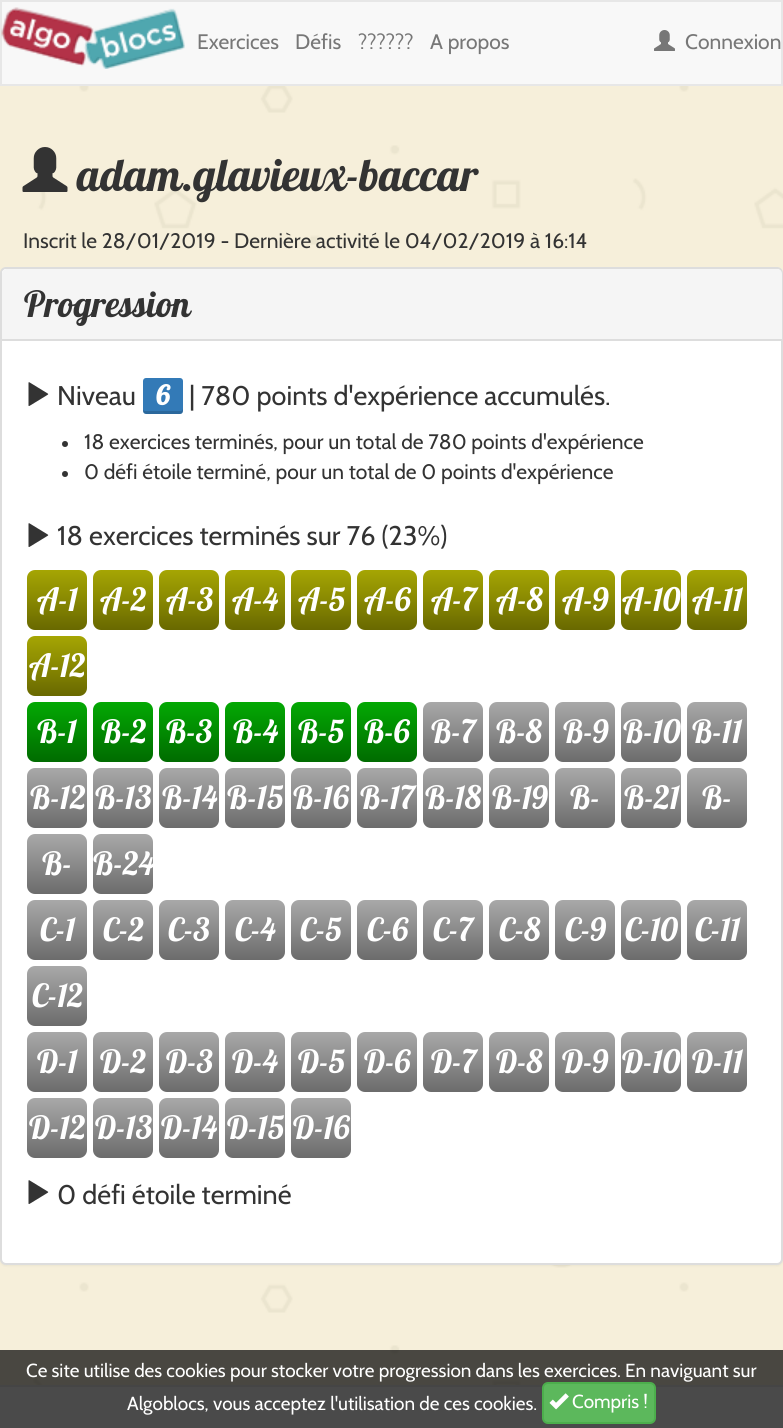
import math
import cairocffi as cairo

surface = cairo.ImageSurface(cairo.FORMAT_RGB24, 783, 1428)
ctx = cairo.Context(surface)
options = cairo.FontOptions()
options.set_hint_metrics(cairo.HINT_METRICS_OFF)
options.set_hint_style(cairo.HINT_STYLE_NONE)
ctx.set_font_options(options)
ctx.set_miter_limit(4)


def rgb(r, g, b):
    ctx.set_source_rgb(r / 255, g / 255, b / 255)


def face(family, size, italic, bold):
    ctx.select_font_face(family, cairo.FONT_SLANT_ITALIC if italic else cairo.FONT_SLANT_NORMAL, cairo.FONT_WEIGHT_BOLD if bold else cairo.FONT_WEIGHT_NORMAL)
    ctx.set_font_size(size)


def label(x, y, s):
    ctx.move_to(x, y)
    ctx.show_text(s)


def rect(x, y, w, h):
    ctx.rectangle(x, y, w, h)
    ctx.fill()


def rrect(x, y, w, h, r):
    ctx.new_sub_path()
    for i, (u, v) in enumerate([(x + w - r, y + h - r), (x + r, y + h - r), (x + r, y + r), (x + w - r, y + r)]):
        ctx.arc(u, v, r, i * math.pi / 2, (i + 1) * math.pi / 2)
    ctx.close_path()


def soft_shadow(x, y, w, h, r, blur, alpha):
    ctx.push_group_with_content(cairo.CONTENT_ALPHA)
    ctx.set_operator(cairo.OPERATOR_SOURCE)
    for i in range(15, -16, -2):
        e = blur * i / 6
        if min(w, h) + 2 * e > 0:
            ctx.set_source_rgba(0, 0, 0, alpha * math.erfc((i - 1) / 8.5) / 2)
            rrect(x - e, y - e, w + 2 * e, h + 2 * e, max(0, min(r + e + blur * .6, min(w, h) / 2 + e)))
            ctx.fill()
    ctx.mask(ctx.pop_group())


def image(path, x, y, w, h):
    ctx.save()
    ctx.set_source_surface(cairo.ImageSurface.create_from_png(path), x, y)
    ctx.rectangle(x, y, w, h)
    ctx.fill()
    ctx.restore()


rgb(255, 255, 255)
ctx.paint()
image('image0.png', 0, 86, 783, 1299)
rgb(248, 248, 248)
ctx.rectangle(1, 1, 781, 84)
ctx.fill_preserve()
rgb(231, 231, 231)
ctx.stroke()
image('image1.png', 1, 7, 184, 62)
face('Cabin', 21, 0, 0)
rgb(119, 119, 119)
label(197, 49, 'Exercices')
label(295, 49, 'Défis')
label(358, 49, '??????')
label(430, 49, 'A propos')
image('image2.png', 654, 30, 21, 21)
label(685, 49, 'Connexion')
image('image3.png', 22, 147, 46, 45)
face('Lobster', 45, 0, 0)
rgb(51, 51, 51)
label(77, 191, 'adam.glavieux-baccar')
face('Cabin', 21, 0, 0)
label(23, 248, 'Inscrit le 28/01/2019 - Dernière activité le 04/02/2019 à 16:14')
rgb(0, 0, 0)
soft_shadow(0, 269, 783, 997, 6, 1, 0.05)
rgb(255, 255, 255)
rrect(1, 268, 781, 996, 5)
ctx.fill_preserve()
rgb(221, 221, 221)
ctx.stroke()
rgb(245, 245, 245)
ctx.new_path()
ctx.move_to(7, 269)
ctx.line_to(777, 269)
ctx.curve_to(780, 269, 782, 271, 782, 274)
ctx.line_to(782, 341)
ctx.line_to(2, 341)
ctx.line_to(2, 274)
ctx.curve_to(2, 271, 4, 269, 7, 269)
ctx.close_path()
ctx.fill()
rgb(221, 221, 221)
rect(2, 339, 780, 2)
face('Lobster', 36, 0, 0)
rgb(51, 51, 51)
label(24, 317, 'Progression')
image('image4.png', 28, 382, 21, 24)
face('Cabin', 27, 0, 0)
label(57, 405, 'Niveau')
rgb(51, 122, 183)
rrect(143, 378, 40, 36, 3)
ctx.fill()
ctx.set_source_rgba(0, 0, 0, 0.15)
ctx.new_path()
ctx.move_to(143, 410)
ctx.curve_to(143, 415, 148, 414, 152, 414)
ctx.line_to(174, 414)
ctx.curve_to(182, 414, 183, 415, 183, 408)
ctx.curve_to(183, 410, 182, 411, 180, 411)
ctx.line_to(146, 411)
ctx.curve_to(145, 411, 144, 411, 143, 410)
ctx.close_path()
ctx.fill()
face('Lobster', 27, 0, 1)
rgb(255, 255, 255)
label(156, 405, '6')
face('Cabin', 27, 0, 0)
rgb(51, 51, 51)
label(189, 405, '| 780 points d\'expérience accumulés.')
ctx.new_path()
ctx.arc(65, 444, 3, 0, 2 * math.pi)
ctx.fill()
face('Cabin', 21, 0, 0)
label(84, 449, '18 exercices terminés, pour un total de 780 points d\'expérience')
ctx.new_path()
ctx.arc(65, 474, 3, 0, 2 * math.pi)
ctx.fill()
label(84, 479, '0 défi étoile terminé, pour un total de 0 points d\'expérience')
image('image4.png', 28, 523, 21, 24)
face('Cabin', 27, 0, 0)
label(57, 545, '18 exercices terminés sur 76 (23%)')
gradient = cairo.LinearGradient(57, 570, 57, 630)
gradient.add_color_stop_rgba(0, 0.647, 0.647, 0.012, 1)
gradient.add_color_stop_rgba(0.44, 0.549, 0.549, 0.008, 1)
gradient.add_color_stop_rgba(1, 0.408, 0.408, 0, 1)
ctx.set_source(gradient)
rrect(27, 570, 60, 60, 8)
ctx.fill()
face('Lobster', 32, 0, 0)
rgb(255, 255, 255)
label(37, 611, 'A-1')
gradient = cairo.LinearGradient(123, 570, 123, 630)
gradient.add_color_stop_rgba(0, 0.647, 0.647, 0.012, 1)
gradient.add_color_stop_rgba(0.44, 0.549, 0.549, 0.008, 1)
gradient.add_color_stop_rgba(1, 0.408, 0.408, 0, 1)
ctx.set_source(gradient)
rrect(93, 570, 60, 60, 8)
ctx.fill()
rgb(255, 255, 255)
label(100, 611, 'A-2')
gradient = cairo.LinearGradient(189, 570, 189, 630)
gradient.add_color_stop_rgba(0, 0.647, 0.647, 0.012, 1)
gradient.add_color_stop_rgba(0.44, 0.549, 0.549, 0.008, 1)
gradient.add_color_stop_rgba(1, 0.408, 0.408, 0, 1)
ctx.set_source(gradient)
rrect(159, 570, 60, 60, 8)
ctx.fill()
rgb(255, 255, 255)
label(166, 611, 'A-3')
gradient = cairo.LinearGradient(255, 570, 255, 630)
gradient.add_color_stop_rgba(0, 0.647, 0.647, 0.012, 1)
gradient.add_color_stop_rgba(0.44, 0.549, 0.549, 0.008, 1)
gradient.add_color_stop_rgba(1, 0.408, 0.408, 0, 1)
ctx.set_source(gradient)
rrect(225, 570, 60, 60, 8)
ctx.fill()
rgb(255, 255, 255)
label(232, 611, 'A-4')
gradient = cairo.LinearGradient(321, 570, 321, 630)
gradient.add_color_stop_rgba(0, 0.647, 0.647, 0.012, 1)
gradient.add_color_stop_rgba(0.44, 0.549, 0.549, 0.008, 1)
gradient.add_color_stop_rgba(1, 0.408, 0.408, 0, 1)
ctx.set_source(gradient)
rrect(291, 570, 60, 60, 8)
ctx.fill()
rgb(255, 255, 255)
label(298, 611, 'A-5')
gradient = cairo.LinearGradient(387, 570, 387, 630)
gradient.add_color_stop_rgba(0, 0.647, 0.647, 0.012, 1)
gradient.add_color_stop_rgba(0.44, 0.549, 0.549, 0.008, 1)
gradient.add_color_stop_rgba(1, 0.408, 0.408, 0, 1)
ctx.set_source(gradient)
rrect(357, 570, 60, 60, 8)
ctx.fill()
rgb(255, 255, 255)
label(364, 611, 'A-6')
gradient = cairo.LinearGradient(453, 570, 453, 630)
gradient.add_color_stop_rgba(0, 0.647, 0.647, 0.012, 1)
gradient.add_color_stop_rgba(0.44, 0.549, 0.549, 0.008, 1)
gradient.add_color_stop_rgba(1, 0.408, 0.408, 0, 1)
ctx.set_source(gradient)
rrect(423, 570, 60, 60, 8)
ctx.fill()
rgb(255, 255, 255)
label(431, 611, 'A-7')
gradient = cairo.LinearGradient(519, 570, 519, 630)
gradient.add_color_stop_rgba(0, 0.647, 0.647, 0.012, 1)
gradient.add_color_stop_rgba(0.44, 0.549, 0.549, 0.008, 1)
gradient.add_color_stop_rgba(1, 0.408, 0.408, 0, 1)
ctx.set_source(gradient)
rrect(489, 570, 60, 60, 8)
ctx.fill()
rgb(255, 255, 255)
label(496, 611, 'A-8')
gradient = cairo.LinearGradient(585, 570, 585, 630)
gradient.add_color_stop_rgba(0, 0.647, 0.647, 0.012, 1)
gradient.add_color_stop_rgba(0.44, 0.549, 0.549, 0.008, 1)
gradient.add_color_stop_rgba(1, 0.408, 0.408, 0, 1)
ctx.set_source(gradient)
rrect(555, 570, 60, 60, 8)
ctx.fill()
rgb(255, 255, 255)
label(562, 611, 'A-9')
gradient = cairo.LinearGradient(651, 570, 651, 630)
gradient.add_color_stop_rgba(0, 0.647, 0.647, 0.012, 1)
gradient.add_color_stop_rgba(0.44, 0.549, 0.549, 0.008, 1)
gradient.add_color_stop_rgba(1, 0.408, 0.408, 0, 1)
ctx.set_source(gradient)
rrect(621, 570, 60, 60, 8)
ctx.fill()
rgb(255, 255, 255)
label(622, 611, 'A-10')
gradient = cairo.LinearGradient(717, 570, 717, 630)
gradient.add_color_stop_rgba(0, 0.647, 0.647, 0.012, 1)
gradient.add_color_stop_rgba(0.44, 0.549, 0.549, 0.008, 1)
gradient.add_color_stop_rgba(1, 0.408, 0.408, 0, 1)
ctx.set_source(gradient)
rrect(687, 570, 60, 60, 8)
ctx.fill()
rgb(255, 255, 255)
label(692, 611, 'A-11')
gradient = cairo.LinearGradient(57, 636, 57, 696)
gradient.add_color_stop_rgba(0, 0.647, 0.647, 0.012, 1)
gradient.add_color_stop_rgba(0.44, 0.549, 0.549, 0.008, 1)
gradient.add_color_stop_rgba(1, 0.408, 0.408, 0, 1)
ctx.set_source(gradient)
rrect(27, 636, 60, 60, 8)
ctx.fill()
rgb(255, 255, 255)
label(29, 677, 'A-12')
gradient = cairo.LinearGradient(57, 702, 57, 762)
gradient.add_color_stop_rgba(0, 0.012, 0.659, 0.012, 1)
gradient.add_color_stop_rgba(0.44, 0.008, 0.557, 0.008, 1)
gradient.add_color_stop_rgba(1, 0, 0.42, 0, 1)
ctx.set_source(gradient)
rrect(27, 702, 60, 60, 8)
ctx.fill()
rgb(255, 255, 255)
label(37, 743, 'B-1')
gradient = cairo.LinearGradient(123, 702, 123, 762)
gradient.add_color_stop_rgba(0, 0.012, 0.659, 0.012, 1)
gradient.add_color_stop_rgba(0.44, 0.008, 0.557, 0.008, 1)
gradient.add_color_stop_rgba(1, 0, 0.42, 0, 1)
ctx.set_source(gradient)
rrect(93, 702, 60, 60, 8)
ctx.fill()
rgb(255, 255, 255)
label(101, 743, 'B-2')
gradient = cairo.LinearGradient(189, 702, 189, 762)
gradient.add_color_stop_rgba(0, 0.012, 0.659, 0.012, 1)
gradient.add_color_stop_rgba(0.44, 0.008, 0.557, 0.008, 1)
gradient.add_color_stop_rgba(1, 0, 0.42, 0, 1)
ctx.set_source(gradient)
rrect(159, 702, 60, 60, 8)
ctx.fill()
rgb(255, 255, 255)
label(166, 743, 'B-3')
gradient = cairo.LinearGradient(255, 702, 255, 762)
gradient.add_color_stop_rgba(0, 0.012, 0.659, 0.012, 1)
gradient.add_color_stop_rgba(0.44, 0.008, 0.557, 0.008, 1)
gradient.add_color_stop_rgba(1, 0, 0.42, 0, 1)
ctx.set_source(gradient)
rrect(225, 702, 60, 60, 8)
ctx.fill()
rgb(255, 255, 255)
label(233, 743, 'B-4')
gradient = cairo.LinearGradient(321, 702, 321, 762)
gradient.add_color_stop_rgba(0, 0.012, 0.659, 0.012, 1)
gradient.add_color_stop_rgba(0.44, 0.008, 0.557, 0.008, 1)
gradient.add_color_stop_rgba(1, 0, 0.42, 0, 1)
ctx.set_source(gradient)
rrect(291, 702, 60, 60, 8)
ctx.fill()
rgb(255, 255, 255)
label(298, 743, 'B-5')
gradient = cairo.LinearGradient(387, 702, 387, 762)
gradient.add_color_stop_rgba(0, 0.012, 0.659, 0.012, 1)
gradient.add_color_stop_rgba(0.44, 0.008, 0.557, 0.008, 1)
gradient.add_color_stop_rgba(1, 0, 0.42, 0, 1)
ctx.set_source(gradient)
rrect(357, 702, 60, 60, 8)
ctx.fill()
rgb(255, 255, 255)
label(364, 743, 'B-6')
gradient = cairo.LinearGradient(453, 702, 453, 762)
gradient.add_color_stop_rgba(0, 0.659, 0.659, 0.659, 1)
gradient.add_color_stop_rgba(0.44, 0.557, 0.557, 0.557, 1)
gradient.add_color_stop_rgba(1, 0.42, 0.42, 0.42, 1)
ctx.set_source(gradient)
rrect(423, 702, 60, 60, 8)
ctx.fill()
rgb(255, 255, 255)
label(431, 743, 'B-7')
gradient = cairo.LinearGradient(519, 702, 519, 762)
gradient.add_color_stop_rgba(0, 0.659, 0.659, 0.659, 1)
gradient.add_color_stop_rgba(0.44, 0.557, 0.557, 0.557, 1)
gradient.add_color_stop_rgba(1, 0.42, 0.42, 0.42, 1)
ctx.set_source(gradient)
rrect(489, 702, 60, 60, 8)
ctx.fill()
rgb(255, 255, 255)
label(496, 743, 'B-8')
gradient = cairo.LinearGradient(585, 702, 585, 762)
gradient.add_color_stop_rgba(0, 0.659, 0.659, 0.659, 1)
gradient.add_color_stop_rgba(0.44, 0.557, 0.557, 0.557, 1)
gradient.add_color_stop_rgba(1, 0.42, 0.42, 0.42, 1)
ctx.set_source(gradient)
rrect(555, 702, 60, 60, 8)
ctx.fill()
rgb(255, 255, 255)
label(563, 743, 'B-9')
gradient = cairo.LinearGradient(651, 702, 651, 762)
gradient.add_color_stop_rgba(0, 0.659, 0.659, 0.659, 1)
gradient.add_color_stop_rgba(0.44, 0.557, 0.557, 0.557, 1)
gradient.add_color_stop_rgba(1, 0.42, 0.42, 0.42, 1)
ctx.set_source(gradient)
rrect(621, 702, 60, 60, 8)
ctx.fill()
rgb(255, 255, 255)
label(623, 743, 'B-10')
gradient = cairo.LinearGradient(717, 702, 717, 762)
gradient.add_color_stop_rgba(0, 0.659, 0.659, 0.659, 1)
gradient.add_color_stop_rgba(0.44, 0.557, 0.557, 0.557, 1)
gradient.add_color_stop_rgba(1, 0.42, 0.42, 0.42, 1)
ctx.set_source(gradient)
rrect(687, 702, 60, 60, 8)
ctx.fill()
rgb(255, 255, 255)
label(692, 743, 'B-11')
gradient = cairo.LinearGradient(57, 768, 57, 828)
gradient.add_color_stop_rgba(0, 0.659, 0.659, 0.659, 1)
gradient.add_color_stop_rgba(0.44, 0.557, 0.557, 0.557, 1)
gradient.add_color_stop_rgba(1, 0.42, 0.42, 0.42, 1)
ctx.set_source(gradient)
rrect(27, 768, 60, 60, 8)
ctx.fill()
rgb(255, 255, 255)
label(30, 809, 'B-12')
gradient = cairo.LinearGradient(123, 768, 123, 828)
gradient.add_color_stop_rgba(0, 0.659, 0.659, 0.659, 1)
gradient.add_color_stop_rgba(0.44, 0.557, 0.557, 0.557, 1)
gradient.add_color_stop_rgba(1, 0.42, 0.42, 0.42, 1)
ctx.set_source(gradient)
rrect(93, 768, 60, 60, 8)
ctx.fill()
rgb(255, 255, 255)
label(95, 809, 'B-13')
gradient = cairo.LinearGradient(189, 768, 189, 828)
gradient.add_color_stop_rgba(0, 0.659, 0.659, 0.659, 1)
gradient.add_color_stop_rgba(0.44, 0.557, 0.557, 0.557, 1)
gradient.add_color_stop_rgba(1, 0.42, 0.42, 0.42, 1)
ctx.set_source(gradient)
rrect(159, 768, 60, 60, 8)
ctx.fill()
rgb(255, 255, 255)
label(162, 809, 'B-14')
gradient = cairo.LinearGradient(255, 768, 255, 828)
gradient.add_color_stop_rgba(0, 0.659, 0.659, 0.659, 1)
gradient.add_color_stop_rgba(0.44, 0.557, 0.557, 0.557, 1)
gradient.add_color_stop_rgba(1, 0.42, 0.42, 0.42, 1)
ctx.set_source(gradient)
rrect(225, 768, 60, 60, 8)
ctx.fill()
rgb(255, 255, 255)
label(227, 809, 'B-15')
gradient = cairo.LinearGradient(321, 768, 321, 828)
gradient.add_color_stop_rgba(0, 0.659, 0.659, 0.659, 1)
gradient.add_color_stop_rgba(0.44, 0.557, 0.557, 0.557, 1)
gradient.add_color_stop_rgba(1, 0.42, 0.42, 0.42, 1)
ctx.set_source(gradient)
rrect(291, 768, 60, 60, 8)
ctx.fill()
rgb(255, 255, 255)
label(293, 809, 'B-16')
gradient = cairo.LinearGradient(387, 768, 387, 828)
gradient.add_color_stop_rgba(0, 0.659, 0.659, 0.659, 1)
gradient.add_color_stop_rgba(0.44, 0.557, 0.557, 0.557, 1)
gradient.add_color_stop_rgba(1, 0.42, 0.42, 0.42, 1)
ctx.set_source(gradient)
rrect(357, 768, 60, 60, 8)
ctx.fill()
rgb(255, 255, 255)
label(360, 809, 'B-17')
gradient = cairo.LinearGradient(453, 768, 453, 828)
gradient.add_color_stop_rgba(0, 0.659, 0.659, 0.659, 1)
gradient.add_color_stop_rgba(0.44, 0.557, 0.557, 0.557, 1)
gradient.add_color_stop_rgba(1, 0.42, 0.42, 0.42, 1)
ctx.set_source(gradient)
rrect(423, 768, 60, 60, 8)
ctx.fill()
rgb(255, 255, 255)
label(425, 809, 'B-18')
gradient = cairo.LinearGradient(519, 768, 519, 828)
gradient.add_color_stop_rgba(0, 0.659, 0.659, 0.659, 1)
gradient.add_color_stop_rgba(0.44, 0.557, 0.557, 0.557, 1)
gradient.add_color_stop_rgba(1, 0.42, 0.42, 0.42, 1)
ctx.set_source(gradient)
rrect(489, 768, 60, 60, 8)
ctx.fill()
rgb(255, 255, 255)
label(492, 809, 'B-19')
gradient = cairo.LinearGradient(585, 768, 585, 828)
gradient.add_color_stop_rgba(0, 0.659, 0.659, 0.659, 1)
gradient.add_color_stop_rgba(0.44, 0.557, 0.557, 0.557, 1)
gradient.add_color_stop_rgba(1, 0.42, 0.42, 0.42, 1)
ctx.set_source(gradient)
rrect(555, 768, 60, 60, 8)
ctx.fill()
rgb(255, 255, 255)
label(570, 809, 'B-')
gradient = cairo.LinearGradient(651, 768, 651, 828)
gradient.add_color_stop_rgba(0, 0.659, 0.659, 0.659, 1)
gradient.add_color_stop_rgba(0.44, 0.557, 0.557, 0.557, 1)
gradient.add_color_stop_rgba(1, 0.42, 0.42, 0.42, 1)
ctx.set_source(gradient)
rrect(621, 768, 60, 60, 8)
ctx.fill()
rgb(255, 255, 255)
label(624, 809, 'B-21')
gradient = cairo.LinearGradient(717, 768, 717, 828)
gradient.add_color_stop_rgba(0, 0.659, 0.659, 0.659, 1)
gradient.add_color_stop_rgba(0.44, 0.557, 0.557, 0.557, 1)
gradient.add_color_stop_rgba(1, 0.42, 0.42, 0.42, 1)
ctx.set_source(gradient)
rrect(687, 768, 60, 60, 8)
ctx.fill()
rgb(255, 255, 255)
label(702, 809, 'B-')
gradient = cairo.LinearGradient(57, 834, 57, 894)
gradient.add_color_stop_rgba(0, 0.659, 0.659, 0.659, 1)
gradient.add_color_stop_rgba(0.44, 0.557, 0.557, 0.557, 1)
gradient.add_color_stop_rgba(1, 0.42, 0.42, 0.42, 1)
ctx.set_source(gradient)
rrect(27, 834, 60, 60, 8)
ctx.fill()
rgb(255, 255, 255)
label(42, 875, 'B-')
gradient = cairo.LinearGradient(123, 834, 123, 894)
gradient.add_color_stop_rgba(0, 0.659, 0.659, 0.659, 1)
gradient.add_color_stop_rgba(0.44, 0.557, 0.557, 0.557, 1)
gradient.add_color_stop_rgba(1, 0.42, 0.42, 0.42, 1)
ctx.set_source(gradient)
rrect(93, 834, 60, 60, 8)
ctx.fill()
rgb(255, 255, 255)
label(93, 875, 'B-24')
gradient = cairo.LinearGradient(57, 900, 57, 960)
gradient.add_color_stop_rgba(0, 0.659, 0.659, 0.659, 1)
gradient.add_color_stop_rgba(0.44, 0.557, 0.557, 0.557, 1)
gradient.add_color_stop_rgba(1, 0.42, 0.42, 0.42, 1)
ctx.set_source(gradient)
rrect(27, 900, 60, 60, 8)
ctx.fill()
rgb(255, 255, 255)
label(40, 941, 'C-1')
gradient = cairo.LinearGradient(123, 900, 123, 960)
gradient.add_color_stop_rgba(0, 0.659, 0.659, 0.659, 1)
gradient.add_color_stop_rgba(0.44, 0.557, 0.557, 0.557, 1)
gradient.add_color_stop_rgba(1, 0.42, 0.42, 0.42, 1)
ctx.set_source(gradient)
rrect(93, 900, 60, 60, 8)
ctx.fill()
rgb(255, 255, 255)
label(103, 941, 'C-2')
gradient = cairo.LinearGradient(189, 900, 189, 960)
gradient.add_color_stop_rgba(0, 0.659, 0.659, 0.659, 1)
gradient.add_color_stop_rgba(0.44, 0.557, 0.557, 0.557, 1)
gradient.add_color_stop_rgba(1, 0.42, 0.42, 0.42, 1)
ctx.set_source(gradient)
rrect(159, 900, 60, 60, 8)
ctx.fill()
rgb(255, 255, 255)
label(168, 941, 'C-3')
gradient = cairo.LinearGradient(255, 900, 255, 960)
gradient.add_color_stop_rgba(0, 0.659, 0.659, 0.659, 1)
gradient.add_color_stop_rgba(0.44, 0.557, 0.557, 0.557, 1)
gradient.add_color_stop_rgba(1, 0.42, 0.42, 0.42, 1)
ctx.set_source(gradient)
rrect(225, 900, 60, 60, 8)
ctx.fill()
rgb(255, 255, 255)
label(235, 941, 'C-4')
gradient = cairo.LinearGradient(321, 900, 321, 960)
gradient.add_color_stop_rgba(0, 0.659, 0.659, 0.659, 1)
gradient.add_color_stop_rgba(0.44, 0.557, 0.557, 0.557, 1)
gradient.add_color_stop_rgba(1, 0.42, 0.42, 0.42, 1)
ctx.set_source(gradient)
rrect(291, 900, 60, 60, 8)
ctx.fill()
rgb(255, 255, 255)
label(300, 941, 'C-5')
gradient = cairo.LinearGradient(387, 900, 387, 960)
gradient.add_color_stop_rgba(0, 0.659, 0.659, 0.659, 1)
gradient.add_color_stop_rgba(0.44, 0.557, 0.557, 0.557, 1)
gradient.add_color_stop_rgba(1, 0.42, 0.42, 0.42, 1)
ctx.set_source(gradient)
rrect(357, 900, 60, 60, 8)
ctx.fill()
rgb(255, 255, 255)
label(367, 941, 'C-6')
gradient = cairo.LinearGradient(453, 900, 453, 960)
gradient.add_color_stop_rgba(0, 0.659, 0.659, 0.659, 1)
gradient.add_color_stop_rgba(0.44, 0.557, 0.557, 0.557, 1)
gradient.add_color_stop_rgba(1, 0.42, 0.42, 0.42, 1)
ctx.set_source(gradient)
rrect(423, 900, 60, 60, 8)
ctx.fill()
rgb(255, 255, 255)
label(433, 941, 'C-7')
gradient = cairo.LinearGradient(519, 900, 519, 960)
gradient.add_color_stop_rgba(0, 0.659, 0.659, 0.659, 1)
gradient.add_color_stop_rgba(0.44, 0.557, 0.557, 0.557, 1)
gradient.add_color_stop_rgba(1, 0.42, 0.42, 0.42, 1)
ctx.set_source(gradient)
rrect(489, 900, 60, 60, 8)
ctx.fill()
rgb(255, 255, 255)
label(499, 941, 'C-8')
gradient = cairo.LinearGradient(585, 900, 585, 960)
gradient.add_color_stop_rgba(0, 0.659, 0.659, 0.659, 1)
gradient.add_color_stop_rgba(0.44, 0.557, 0.557, 0.557, 1)
gradient.add_color_stop_rgba(1, 0.42, 0.42, 0.42, 1)
ctx.set_source(gradient)
rrect(555, 900, 60, 60, 8)
ctx.fill()
rgb(255, 255, 255)
label(565, 941, 'C-9')
gradient = cairo.LinearGradient(651, 900, 651, 960)
gradient.add_color_stop_rgba(0, 0.659, 0.659, 0.659, 1)
gradient.add_color_stop_rgba(0.44, 0.557, 0.557, 0.557, 1)
gradient.add_color_stop_rgba(1, 0.42, 0.42, 0.42, 1)
ctx.set_source(gradient)
rrect(621, 900, 60, 60, 8)
ctx.fill()
rgb(255, 255, 255)
label(625, 941, 'C-10')
gradient = cairo.LinearGradient(717, 900, 717, 960)
gradient.add_color_stop_rgba(0, 0.659, 0.659, 0.659, 1)
gradient.add_color_stop_rgba(0.44, 0.557, 0.557, 0.557, 1)
gradient.add_color_stop_rgba(1, 0.42, 0.42, 0.42, 1)
ctx.set_source(gradient)
rrect(687, 900, 60, 60, 8)
ctx.fill()
rgb(255, 255, 255)
label(695, 941, 'C-11')
gradient = cairo.LinearGradient(57, 966, 57, 1026)
gradient.add_color_stop_rgba(0, 0.659, 0.659, 0.659, 1)
gradient.add_color_stop_rgba(0.44, 0.557, 0.557, 0.557, 1)
gradient.add_color_stop_rgba(1, 0.42, 0.42, 0.42, 1)
ctx.set_source(gradient)
rrect(27, 966, 60, 60, 8)
ctx.fill()
rgb(255, 255, 255)
label(32, 1007, 'C-12')
gradient = cairo.LinearGradient(57, 1032, 57, 1092)
gradient.add_color_stop_rgba(0, 0.659, 0.659, 0.659, 1)
gradient.add_color_stop_rgba(0.44, 0.557, 0.557, 0.557, 1)
gradient.add_color_stop_rgba(1, 0.42, 0.42, 0.42, 1)
ctx.set_source(gradient)
rrect(27, 1032, 60, 60, 8)
ctx.fill()
rgb(255, 255, 255)
label(37, 1073, 'D-1')
gradient = cairo.LinearGradient(123, 1032, 123, 1092)
gradient.add_color_stop_rgba(0, 0.659, 0.659, 0.659, 1)
gradient.add_color_stop_rgba(0.44, 0.557, 0.557, 0.557, 1)
gradient.add_color_stop_rgba(1, 0.42, 0.42, 0.42, 1)
ctx.set_source(gradient)
rrect(93, 1032, 60, 60, 8)
ctx.fill()
rgb(255, 255, 255)
label(100, 1073, 'D-2')
gradient = cairo.LinearGradient(189, 1032, 189, 1092)
gradient.add_color_stop_rgba(0, 0.659, 0.659, 0.659, 1)
gradient.add_color_stop_rgba(0.44, 0.557, 0.557, 0.557, 1)
gradient.add_color_stop_rgba(1, 0.42, 0.42, 0.42, 1)
ctx.set_source(gradient)
rrect(159, 1032, 60, 60, 8)
ctx.fill()
rgb(255, 255, 255)
label(166, 1073, 'D-3')
gradient = cairo.LinearGradient(255, 1032, 255, 1092)
gradient.add_color_stop_rgba(0, 0.659, 0.659, 0.659, 1)
gradient.add_color_stop_rgba(0.44, 0.557, 0.557, 0.557, 1)
gradient.add_color_stop_rgba(1, 0.42, 0.42, 0.42, 1)
ctx.set_source(gradient)
rrect(225, 1032, 60, 60, 8)
ctx.fill()
rgb(255, 255, 255)
label(232, 1073, 'D-4')
gradient = cairo.LinearGradient(321, 1032, 321, 1092)
gradient.add_color_stop_rgba(0, 0.659, 0.659, 0.659, 1)
gradient.add_color_stop_rgba(0.44, 0.557, 0.557, 0.557, 1)
gradient.add_color_stop_rgba(1, 0.42, 0.42, 0.42, 1)
ctx.set_source(gradient)
rrect(291, 1032, 60, 60, 8)
ctx.fill()
rgb(255, 255, 255)
label(298, 1073, 'D-5')
gradient = cairo.LinearGradient(387, 1032, 387, 1092)
gradient.add_color_stop_rgba(0, 0.659, 0.659, 0.659, 1)
gradient.add_color_stop_rgba(0.44, 0.557, 0.557, 0.557, 1)
gradient.add_color_stop_rgba(1, 0.42, 0.42, 0.42, 1)
ctx.set_source(gradient)
rrect(357, 1032, 60, 60, 8)
ctx.fill()
rgb(255, 255, 255)
label(364, 1073, 'D-6')
gradient = cairo.LinearGradient(453, 1032, 453, 1092)
gradient.add_color_stop_rgba(0, 0.659, 0.659, 0.659, 1)
gradient.add_color_stop_rgba(0.44, 0.557, 0.557, 0.557, 1)
gradient.add_color_stop_rgba(1, 0.42, 0.42, 0.42, 1)
ctx.set_source(gradient)
rrect(423, 1032, 60, 60, 8)
ctx.fill()
rgb(255, 255, 255)
label(431, 1073, 'D-7')
gradient = cairo.LinearGradient(519, 1032, 519, 1092)
gradient.add_color_stop_rgba(0, 0.659, 0.659, 0.659, 1)
gradient.add_color_stop_rgba(0.44, 0.557, 0.557, 0.557, 1)
gradient.add_color_stop_rgba(1, 0.42, 0.42, 0.42, 1)
ctx.set_source(gradient)
rrect(489, 1032, 60, 60, 8)
ctx.fill()
rgb(255, 255, 255)
label(496, 1073, 'D-8')
gradient = cairo.LinearGradient(585, 1032, 585, 1092)
gradient.add_color_stop_rgba(0, 0.659, 0.659, 0.659, 1)
gradient.add_color_stop_rgba(0.44, 0.557, 0.557, 0.557, 1)
gradient.add_color_stop_rgba(1, 0.42, 0.42, 0.42, 1)
ctx.set_source(gradient)
rrect(555, 1032, 60, 60, 8)
ctx.fill()
rgb(255, 255, 255)
label(562, 1073, 'D-9')
gradient = cairo.LinearGradient(651, 1032, 651, 1092)
gradient.add_color_stop_rgba(0, 0.659, 0.659, 0.659, 1)
gradient.add_color_stop_rgba(0.44, 0.557, 0.557, 0.557, 1)
gradient.add_color_stop_rgba(1, 0.42, 0.42, 0.42, 1)
ctx.set_source(gradient)
rrect(621, 1032, 60, 60, 8)
ctx.fill()
rgb(255, 255, 255)
label(622, 1073, 'D-10')
gradient = cairo.LinearGradient(717, 1032, 717, 1092)
gradient.add_color_stop_rgba(0, 0.659, 0.659, 0.659, 1)
gradient.add_color_stop_rgba(0.44, 0.557, 0.557, 0.557, 1)
gradient.add_color_stop_rgba(1, 0.42, 0.42, 0.42, 1)
ctx.set_source(gradient)
rrect(687, 1032, 60, 60, 8)
ctx.fill()
rgb(255, 255, 255)
label(692, 1073, 'D-11')
gradient = cairo.LinearGradient(57, 1098, 57, 1158)
gradient.add_color_stop_rgba(0, 0.659, 0.659, 0.659, 1)
gradient.add_color_stop_rgba(0.44, 0.557, 0.557, 0.557, 1)
gradient.add_color_stop_rgba(1, 0.42, 0.42, 0.42, 1)
ctx.set_source(gradient)
rrect(27, 1098, 60, 60, 8)
ctx.fill()
rgb(255, 255, 255)
label(29, 1139, 'D-12')
gradient = cairo.LinearGradient(123, 1098, 123, 1158)
gradient.add_color_stop_rgba(0, 0.659, 0.659, 0.659, 1)
gradient.add_color_stop_rgba(0.44, 0.557, 0.557, 0.557, 1)
gradient.add_color_stop_rgba(1, 0.42, 0.42, 0.42, 1)
ctx.set_source(gradient)
rrect(93, 1098, 60, 60, 8)
ctx.fill()
rgb(255, 255, 255)
label(95, 1139, 'D-13')
gradient = cairo.LinearGradient(189, 1098, 189, 1158)
gradient.add_color_stop_rgba(0, 0.659, 0.659, 0.659, 1)
gradient.add_color_stop_rgba(0.44, 0.557, 0.557, 0.557, 1)
gradient.add_color_stop_rgba(1, 0.42, 0.42, 0.42, 1)
ctx.set_source(gradient)
rrect(159, 1098, 60, 60, 8)
ctx.fill()
rgb(255, 255, 255)
label(161, 1139, 'D-14')
gradient = cairo.LinearGradient(255, 1098, 255, 1158)
gradient.add_color_stop_rgba(0, 0.659, 0.659, 0.659, 1)
gradient.add_color_stop_rgba(0.44, 0.557, 0.557, 0.557, 1)
gradient.add_color_stop_rgba(1, 0.42, 0.42, 0.42, 1)
ctx.set_source(gradient)
rrect(225, 1098, 60, 60, 8)
ctx.fill()
rgb(255, 255, 255)
label(227, 1139, 'D-15')
gradient = cairo.LinearGradient(321, 1098, 321, 1158)
gradient.add_color_stop_rgba(0, 0.659, 0.659, 0.659, 1)
gradient.add_color_stop_rgba(0.44, 0.557, 0.557, 0.557, 1)
gradient.add_color_stop_rgba(1, 0.42, 0.42, 0.42, 1)
ctx.set_source(gradient)
rrect(291, 1098, 60, 60, 8)
ctx.fill()
rgb(255, 255, 255)
label(293, 1139, 'D-16')
image('image4.png', 28, 1180, 21, 24)
face('Cabin', 27, 0, 0)
rgb(51, 51, 51)
label(57, 1204, '0 défi étoile terminé')
rgb(248, 248, 248)
rect(0, 1387, 783, 41)
rgb(231, 231, 231)
rect(0, 1385, 783, 2)
ctx.set_source_rgba(0, 0, 0, 0.7)
rect(0, 1350, 783, 78)
face('Cabin', 18.9, 0, 0)
rgb(255, 255, 255)
label(26, 1377, 'Ce site utilise des cookies pour stocker votre progression dans les exercices. En naviguant sur')
label(127, 1410, 'Algoblocs, vous acceptez l\'utilisation de ces cookies.')
rgb(92, 184, 92)
rrect(543, 1383, 112, 40, 5)
ctx.fill_preserve()
rgb(76, 174, 76)
ctx.stroke()
image('image5.png', 549, 1393, 20, 17)
rgb(255, 255, 255)
label(572, 1408, 'Compris !')
surface.write_to_png('render.png')
